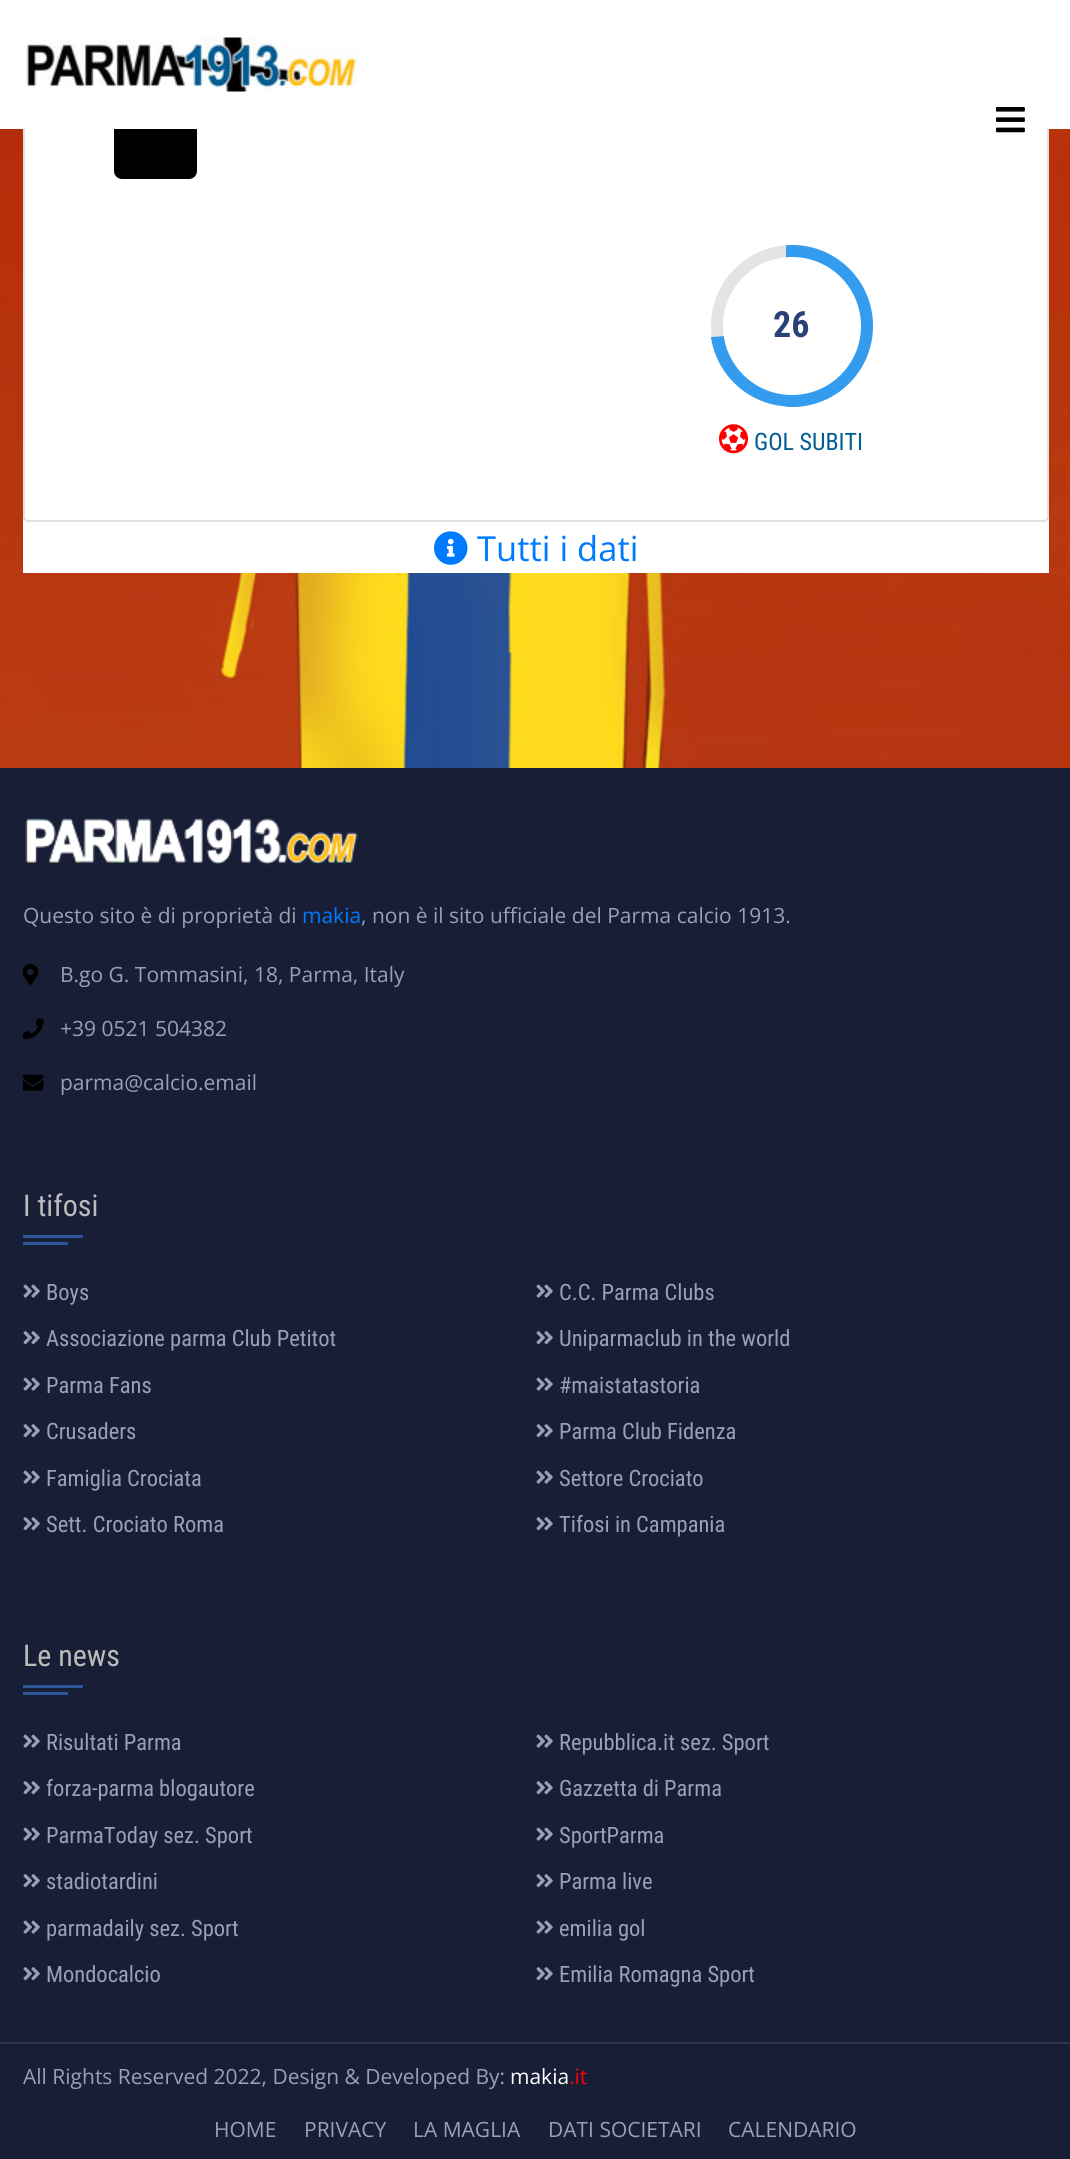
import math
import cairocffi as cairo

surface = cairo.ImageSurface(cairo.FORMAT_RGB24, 1070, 2159)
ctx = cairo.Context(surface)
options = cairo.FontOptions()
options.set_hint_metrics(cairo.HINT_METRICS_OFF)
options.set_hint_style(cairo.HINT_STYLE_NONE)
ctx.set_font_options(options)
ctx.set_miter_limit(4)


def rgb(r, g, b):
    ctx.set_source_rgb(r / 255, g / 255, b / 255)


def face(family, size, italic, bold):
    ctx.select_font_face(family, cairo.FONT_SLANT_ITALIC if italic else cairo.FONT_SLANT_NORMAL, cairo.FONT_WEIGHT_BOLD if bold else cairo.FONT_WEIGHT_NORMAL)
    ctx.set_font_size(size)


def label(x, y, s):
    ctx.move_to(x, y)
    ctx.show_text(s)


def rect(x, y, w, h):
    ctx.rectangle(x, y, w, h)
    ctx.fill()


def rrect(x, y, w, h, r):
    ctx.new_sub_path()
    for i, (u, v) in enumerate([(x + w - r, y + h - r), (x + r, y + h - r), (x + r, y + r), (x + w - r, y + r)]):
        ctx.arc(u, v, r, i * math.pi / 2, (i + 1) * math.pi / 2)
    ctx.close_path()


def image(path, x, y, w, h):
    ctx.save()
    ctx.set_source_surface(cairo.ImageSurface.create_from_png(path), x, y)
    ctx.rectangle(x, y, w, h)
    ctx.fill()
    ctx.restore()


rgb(255, 255, 255)
ctx.paint()
image('image2.png', 0, 129, 1070, 639)
rgb(255, 255, 255)
rect(23, 129, 1026, 444)
ctx.new_path()
ctx.move_to(24, -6)
ctx.line_to(1048, -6)
ctx.line_to(1048, 517)
ctx.curve_to(1048, 519, 1046, 521, 1044, 521)
ctx.line_to(28, 521)
ctx.curve_to(26, 521, 24, 519, 24, 517)
ctx.close_path()
rgb(225, 225, 225)
ctx.stroke()
rgb(0, 0, 0)
rrect(114, 89, 83, 90, 8)
ctx.fill()
rgb(255, 255, 255)
rect(23, 0, 1026, 129)
image('image0.png', 996, 107, 29, 26)
image('image1.png', 26, 37, 333, 55)
rgb(228, 228, 228)
ctx.arc(792, 326, 81, 0, 2 * math.pi)
ctx.fill()
ctx.save()
ctx.rectangle(786, 245, 87, 162)
ctx.clip()
rgb(52, 156, 238)
ctx.arc(792, 326, 81, 0, 2 * math.pi)
ctx.fill()
ctx.restore()
ctx.save()
ctx.new_path()
ctx.move_to(716, 412)
ctx.line_to(711, 337)
ctx.line_to(872.5, 326)
ctx.line_to(877.5, 400.5)
ctx.close_path()
ctx.clip()
ctx.new_path()
ctx.move_to(717, 330.5)
ctx.curve_to(714.5, 289.5, 745, 254, 786, 251.5)
ctx.curve_to(827, 248.5, 862.5, 279.5, 865.5, 320.5)
ctx.curve_to(868, 361, 837.5, 396.5, 796.5, 399.5)
ctx.curve_to(755.5, 402.5, 720, 371.5, 717, 330.5)
ctx.close_path()
rgb(52, 156, 238)
ctx.set_line_width(13.5)
ctx.stroke()
ctx.restore()
rgb(255, 255, 255)
ctx.arc(792, 326, 69, 0, 2 * math.pi)
ctx.fill()
face('Roboto Condensed', 36, 0, 1)
rgb(42, 64, 118)
label(773, 337, '26')
image('image3.png', 719, 424, 29, 30)
face('Roboto Condensed', 24, 0, 0)
rgb(2, 93, 146)
label(754, 450, 'GOL SUBITI')
image('image4.png', 434, 531, 34, 34)
face('Open Sans', 34.5, 0, 0)
rgb(0, 123, 255)
label(477, 561, 'Tutti i dati')
rgb(23, 30, 54)
rect(0, 768, 1070, 1391)
image('image5.png', 25, 818, 333, 47)
face('Open Sans', 21, 0, 0)
rgb(153, 161, 180)
label(23, 923, 'Questo sito è di proprietà di')
rgb(0, 123, 255)
label(302, 923, 'makia')
rgb(153, 161, 180)
label(361, 923, ', non è il sito ufficiale del Parma calcio 1913.')
image('image6.png', 23, 964, 16, 21)
label(60, 982, 'B.go G. Tommasini, 18, Parma, Italy')
image('image7.png', 23, 1018, 21, 22)
label(60, 1036, '+39 0521 504382')
image('image8.png', 23, 1074, 21, 17)
label(60, 1090, 'parma@calcio.email')
face('Roboto Condensed', 30, 0, 0)
rgb(187, 187, 187)
label(23, 1216, 'I tifosi')
rgb(46, 85, 150)
rect(23, 1235, 60, 3)
rect(23, 1242, 45, 3)
image('image9.png', 23, 1284, 17, 14)
face('Roboto Condensed', 22.5, 0, 0)
rgb(153, 161, 180)
label(46, 1300, 'Boys')
image('image9.png', 536, 1284, 17, 14)
label(559, 1300, 'C.C. Parma Clubs')
image('image10.png', 23, 1331, 17, 14)
label(46, 1346, 'Associazione parma Club Petitot')
image('image10.png', 536, 1331, 17, 14)
label(559, 1346, 'Uniparmaclub in the world')
image('image9.png', 23, 1377, 17, 14)
label(46, 1393, 'Parma Fans')
image('image9.png', 536, 1377, 17, 14)
label(559, 1393, '#maistatastoria')
image('image10.png', 23, 1424, 17, 14)
label(46, 1439, 'Crusaders')
image('image10.png', 536, 1424, 17, 14)
label(559, 1439, 'Parma Club Fidenza')
image('image9.png', 23, 1470, 17, 14)
label(46, 1486, 'Famiglia Crociata')
image('image9.png', 536, 1470, 17, 14)
label(559, 1486, 'Settore Crociato')
image('image10.png', 23, 1517, 17, 14)
label(46, 1532, 'Sett. Crociato Roma')
image('image10.png', 536, 1517, 17, 14)
label(559, 1532, 'Tifosi in Campania')
face('Roboto Condensed', 30, 0, 0)
rgb(187, 187, 187)
label(23, 1666, 'Le news')
rgb(46, 85, 150)
rect(23, 1685, 60, 3)
rect(23, 1692, 45, 3)
image('image9.png', 23, 1734, 17, 14)
face('Roboto Condensed', 22.5, 0, 0)
rgb(153, 161, 180)
label(46, 1750, 'Risultati Parma')
image('image9.png', 536, 1734, 17, 14)
label(559, 1750, 'Repubblica.it sez. Sport')
image('image10.png', 23, 1781, 17, 14)
label(46, 1796, 'forza-parma blogautore')
image('image10.png', 536, 1781, 17, 14)
label(559, 1796, 'Gazzetta di Parma')
image('image9.png', 23, 1827, 17, 14)
label(46, 1843, 'ParmaToday sez. Sport')
image('image9.png', 536, 1827, 17, 14)
label(559, 1843, 'SportParma')
image('image10.png', 23, 1874, 17, 14)
label(46, 1889, 'stadiotardini')
image('image10.png', 536, 1874, 17, 14)
label(559, 1889, 'Parma live')
image('image9.png', 23, 1920, 17, 14)
label(46, 1936, 'parmadaily sez. Sport')
image('image9.png', 536, 1920, 17, 14)
label(559, 1936, 'emilia gol')
image('image10.png', 23, 1967, 17, 14)
label(46, 1982, 'Mondocalcio')
image('image10.png', 536, 1967, 17, 14)
label(559, 1982, 'Emilia Romagna Sport')
rgb(46, 53, 74)
rect(0, 2042, 1070, 2)
face('Open Sans', 21, 0, 0)
rgb(153, 161, 180)
label(23, 2084, 'All Rights Reserved 2022, Design & Developed By:')
rgb(255, 255, 255)
label(510, 2084, 'makia')
rgb(255, 0, 0)
label(569, 2084, '.it')
rgb(153, 161, 180)
label(214, 2137, 'HOME')
label(304, 2137, 'PRIVACY')
label(413, 2137, 'LA MAGLIA')
label(548, 2137, 'DATI SOCIETARI')
label(728, 2137, 'CALENDARIO')
surface.write_to_png('render.png')
